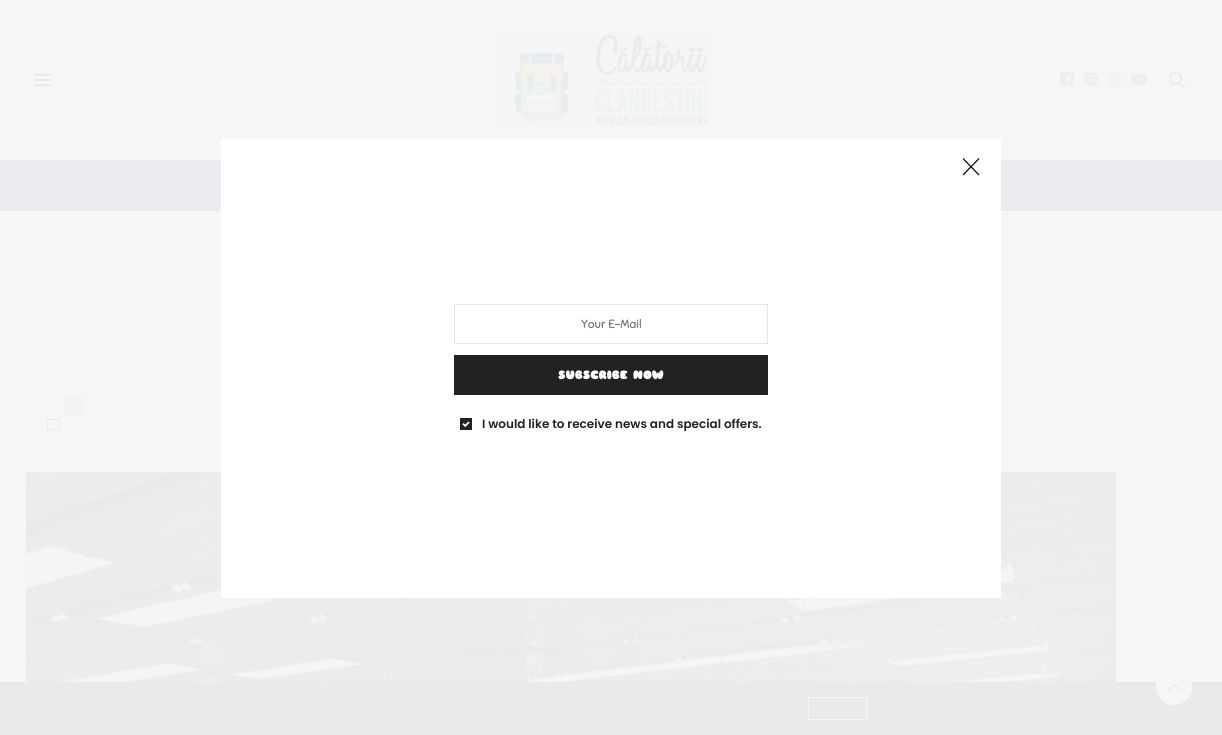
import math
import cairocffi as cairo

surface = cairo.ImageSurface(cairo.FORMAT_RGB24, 1222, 735)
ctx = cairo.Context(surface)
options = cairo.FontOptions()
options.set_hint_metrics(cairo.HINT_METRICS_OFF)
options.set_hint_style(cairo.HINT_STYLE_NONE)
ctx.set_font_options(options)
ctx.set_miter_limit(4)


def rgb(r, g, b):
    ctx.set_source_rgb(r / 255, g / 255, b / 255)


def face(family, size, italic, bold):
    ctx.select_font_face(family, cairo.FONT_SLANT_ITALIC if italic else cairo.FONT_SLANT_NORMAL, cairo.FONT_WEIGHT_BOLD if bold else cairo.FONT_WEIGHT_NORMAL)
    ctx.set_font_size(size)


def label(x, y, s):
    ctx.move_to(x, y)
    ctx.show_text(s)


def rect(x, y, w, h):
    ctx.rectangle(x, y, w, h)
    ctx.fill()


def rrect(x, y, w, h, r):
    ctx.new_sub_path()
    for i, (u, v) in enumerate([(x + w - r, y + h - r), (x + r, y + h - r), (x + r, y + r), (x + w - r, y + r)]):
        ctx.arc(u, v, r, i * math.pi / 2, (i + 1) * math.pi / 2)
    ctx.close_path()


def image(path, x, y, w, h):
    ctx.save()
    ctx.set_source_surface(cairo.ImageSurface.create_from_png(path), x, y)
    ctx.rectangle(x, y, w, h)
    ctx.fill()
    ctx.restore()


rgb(246, 246, 246)
ctx.paint()
rgb(233, 233, 240)
rrect(34, 74, 18, 2, 1)
ctx.fill()
rrect(34, 79, 18, 2, 1)
ctx.fill()
rrect(34, 84, 18, 2, 1)
ctx.fill()
image('image0.png', 501, 34, 207, 92)
image('image1.png', 1060, 72, 14, 15)
image('image2.png', 1084, 72, 14, 15)
image('image3.png', 1107, 72, 14, 15)
image('image4.png', 1131, 73, 16, 12)
image('image5.png', 1169, 72, 16, 16)
rgb(235, 234, 239)
rect(0, 160, 1222, 50)
rgb(235, 233, 239)
rect(0, 210, 1222, 1)
rgb(242, 242, 242)
rect(64, 397, 19, 19)
image('image6.png', 47, 419, 13, 13)
image('image7.png', 26, 472, 1090, 210)
rgb(255, 255, 255)
rect(221, 138, 780, 460)
ctx.new_path()
ctx.move_to(963, 158.5)
ctx.line_to(979, 175)
ctx.move_to(963, 175)
ctx.line_to(979, 158.5)
rgb(0, 0, 0)
ctx.set_line_width(1.2)
ctx.stroke()
ctx.rectangle(454.5, 304.5, 313, 39)
rgb(229, 229, 229)
ctx.set_line_width(1)
ctx.stroke()
face('Sniglet', 12, 0, 0)
rgb(118, 118, 118)
label(581, 328, 'Your E-Mail')
rgb(34, 34, 34)
rect(454, 355, 314, 40)
face('Sniglet ExtraBold', 12, 0, 0)
rgb(255, 255, 255)
label(558, 379, 'SUBSCRIBE NOW')
rgb(34, 34, 34)
rect(460, 418, 12, 12)
image('image8.png', 462, 421, 8, 6)
face('Poppins SemiBold', 12, 0, 0)
label(482, 428, 'I would like to receive news and special offers.')
rgb(234, 234, 234)
rect(0, 682, 1222, 53)
rgb(246, 246, 246)
ctx.new_path()
ctx.arc(1174, 687, 18, 0, 2 * math.pi)
ctx.fill()
image('image9.png', 1168, 684, 12, 7)
ctx.rectangle(808.5, 697.5, 59, 22)
ctx.stroke()
surface.write_to_png('render.png')
